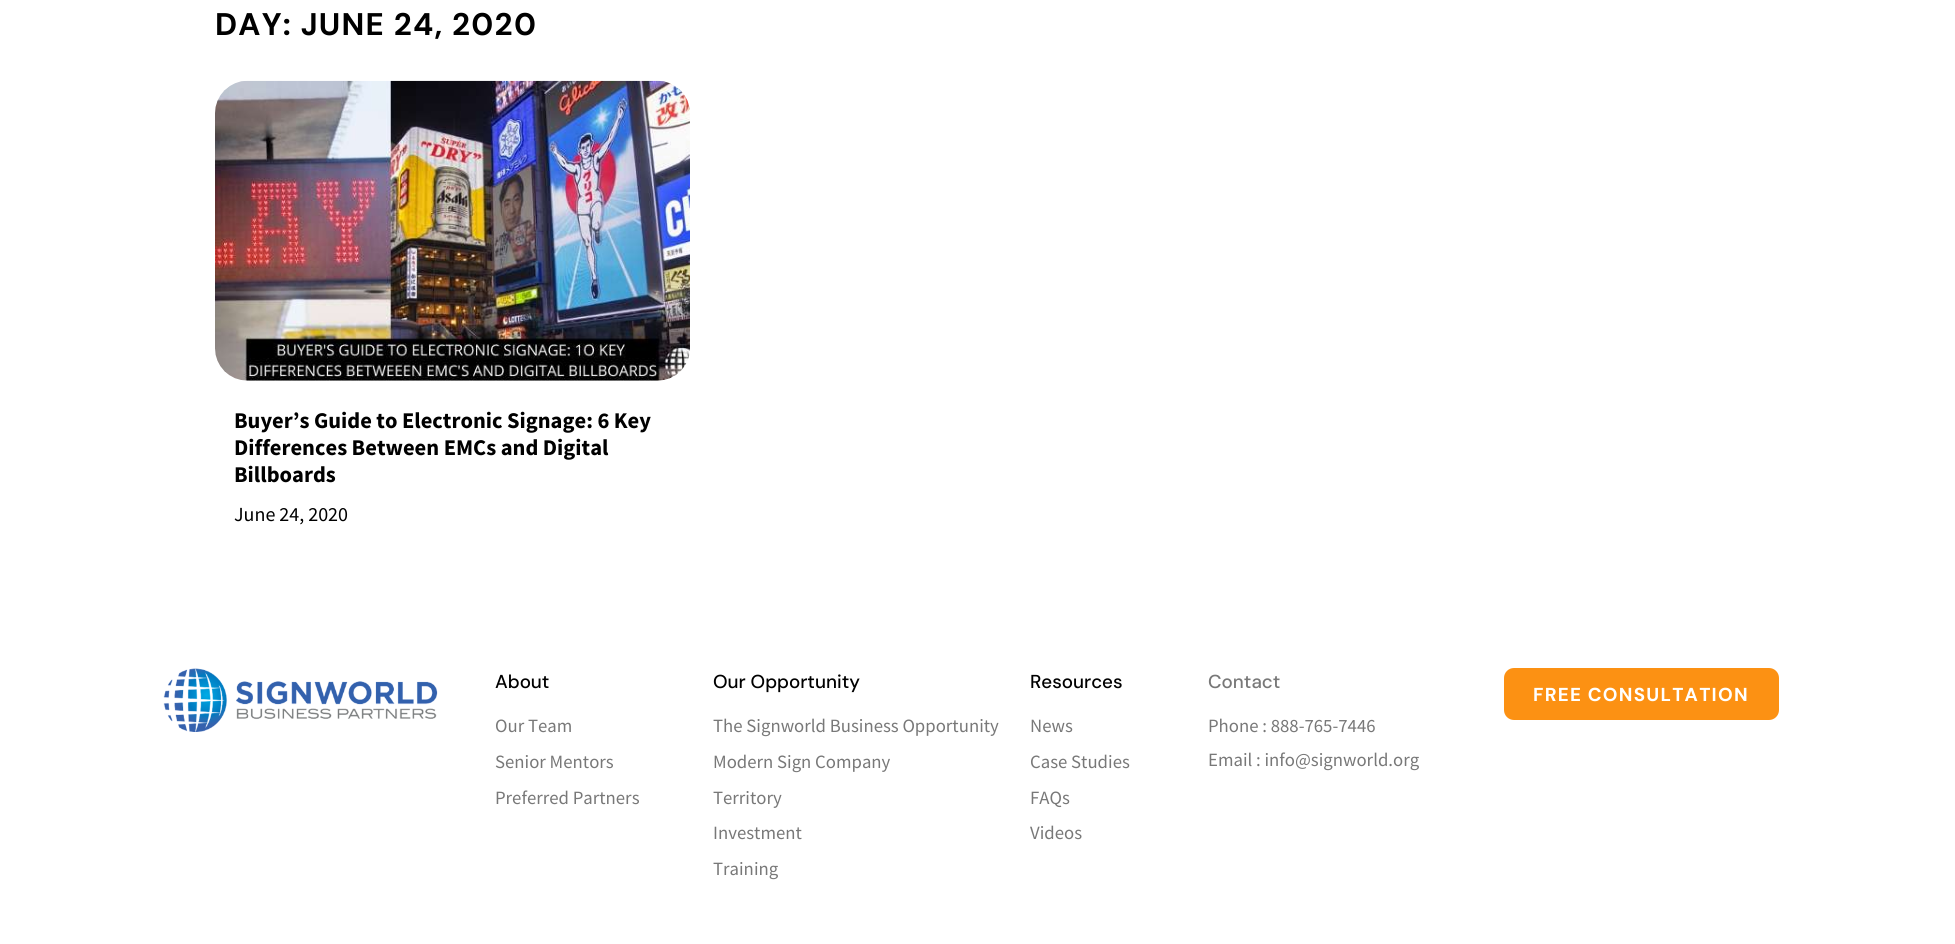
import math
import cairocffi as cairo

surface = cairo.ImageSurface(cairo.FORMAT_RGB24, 1955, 944)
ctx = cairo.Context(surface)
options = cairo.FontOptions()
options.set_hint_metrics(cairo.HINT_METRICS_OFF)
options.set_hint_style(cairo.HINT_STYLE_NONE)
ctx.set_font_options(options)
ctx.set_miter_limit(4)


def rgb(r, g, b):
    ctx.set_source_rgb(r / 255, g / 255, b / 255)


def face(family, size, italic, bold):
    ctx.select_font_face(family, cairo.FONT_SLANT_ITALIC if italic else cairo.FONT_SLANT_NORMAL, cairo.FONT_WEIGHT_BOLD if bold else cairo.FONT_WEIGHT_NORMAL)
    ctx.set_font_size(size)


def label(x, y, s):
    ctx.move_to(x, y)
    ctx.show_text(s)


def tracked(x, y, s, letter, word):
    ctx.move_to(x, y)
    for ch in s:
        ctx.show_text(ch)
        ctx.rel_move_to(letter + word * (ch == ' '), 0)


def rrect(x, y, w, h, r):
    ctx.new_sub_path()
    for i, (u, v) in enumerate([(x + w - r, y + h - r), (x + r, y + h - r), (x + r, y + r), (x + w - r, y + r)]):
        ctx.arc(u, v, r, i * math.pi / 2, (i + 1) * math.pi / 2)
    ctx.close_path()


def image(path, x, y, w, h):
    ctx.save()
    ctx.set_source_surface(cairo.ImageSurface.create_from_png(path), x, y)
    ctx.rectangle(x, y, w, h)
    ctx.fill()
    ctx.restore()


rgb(255, 255, 255)
ctx.paint()
face('DM Sans', 31.25, 0, 1)
rgb(0, 0, 0)
tracked(215, 35, 'DAY: JUNE 24, 2020', 1.25, 0)
image('image0.png', 215, 80, 475, 301)
face('Source Sans Pro', 22.5, 0, 1)
label(234, 428, 'Buyer’s Guide to Electronic Signage: 6 Key')
label(234, 455, 'Differences Between EMCs and Digital')
label(234, 482, 'Billboards')
face('Source Sans Pro', 20, 0, 0)
label(234, 521, 'June 24, 2020')
image('image1.png', 163, 668, 275, 64)
face('DM Sans Medium', 18.75, 0, 0)
label(495, 688, 'About')
face('Source Sans Pro', 18.75, 0, 0)
rgb(120, 120, 120)
label(495, 732, 'Our Team')
label(495, 768, 'Senior Mentors')
label(495, 804, 'Preferred Partners')
face('DM Sans Medium', 18.75, 0, 0)
rgb(0, 0, 0)
label(713, 688, 'Our Opportunity')
face('Source Sans Pro', 18.75, 0, 0)
rgb(120, 120, 120)
label(713, 732, 'The Signworld Business Opportunity')
label(713, 768, 'Modern Sign Company')
label(713, 804, 'Territory')
label(713, 839, 'Investment')
label(713, 875, 'Training')
face('DM Sans Medium', 18.75, 0, 0)
rgb(0, 0, 0)
label(1030, 688, 'Resources')
face('Source Sans Pro', 18.75, 0, 0)
rgb(120, 120, 120)
label(1030, 732, 'News')
label(1030, 768, 'Case Studies')
label(1030, 804, 'FAQs')
label(1030, 839, 'Videos')
face('DM Sans Medium', 18.75, 0, 0)
label(1208, 688, 'Contact')
face('Source Sans Pro', 18.75, 0, 0)
label(1208, 732, 'Phone : 888-765-7446')
label(1208, 766, 'Email : info@signworld.org')
rgb(252, 145, 19)
rrect(1504, 668, 275, 52, 10)
ctx.fill()
face('DM Sans', 18.75, 0, 1)
rgb(255, 255, 255)
tracked(1533, 701, 'FREE CONSULTATION', 1.25, 0)
surface.write_to_png('render.png')
